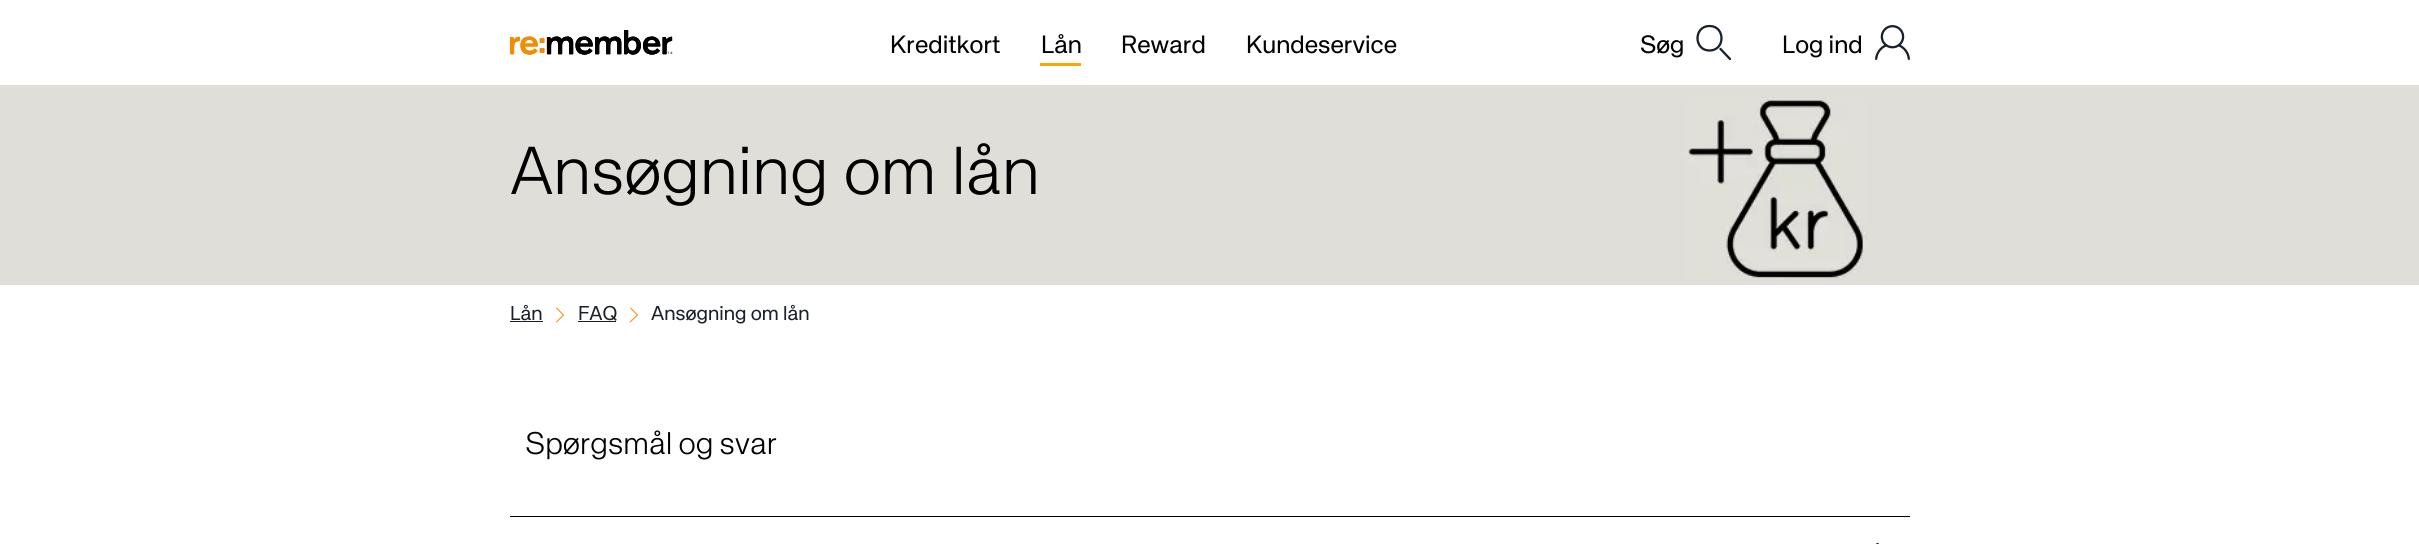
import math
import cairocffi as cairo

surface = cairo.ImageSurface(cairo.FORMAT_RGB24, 2419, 544)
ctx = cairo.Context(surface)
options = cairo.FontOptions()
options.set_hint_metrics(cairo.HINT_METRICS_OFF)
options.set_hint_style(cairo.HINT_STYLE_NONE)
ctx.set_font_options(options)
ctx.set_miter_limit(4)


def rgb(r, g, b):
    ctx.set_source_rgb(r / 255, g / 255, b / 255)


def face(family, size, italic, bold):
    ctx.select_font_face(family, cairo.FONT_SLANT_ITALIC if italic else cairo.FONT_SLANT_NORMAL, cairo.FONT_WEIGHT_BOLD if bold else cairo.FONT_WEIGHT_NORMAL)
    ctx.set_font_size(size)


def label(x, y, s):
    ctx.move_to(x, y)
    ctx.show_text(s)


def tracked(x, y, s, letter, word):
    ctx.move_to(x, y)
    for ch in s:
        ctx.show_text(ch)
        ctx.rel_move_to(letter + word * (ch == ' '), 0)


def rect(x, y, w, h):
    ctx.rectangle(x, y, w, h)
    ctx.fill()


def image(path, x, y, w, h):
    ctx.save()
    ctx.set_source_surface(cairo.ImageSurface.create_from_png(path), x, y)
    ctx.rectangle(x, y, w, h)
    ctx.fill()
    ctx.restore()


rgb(255, 255, 255)
ctx.paint()
image('image0.png', 510, 30, 163, 25)
face('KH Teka', 25, 0, 0)
rgb(0, 0, 0)
label(890, 53, 'Kreditkort')
label(1041, 53, 'Lån')
rgb(255, 165, 0)
rect(1040, 63, 41, 3)
rgb(0, 0, 0)
label(1121, 53, 'Reward')
label(1246, 53, 'Kundeservice')
label(1640, 53, 'Søg')
ctx.new_path()
ctx.move_to(1709.5, 50.5)
ctx.curve_to(1725.5, 50.5, 1725.5, 26, 1709.5, 26)
ctx.curve_to(1693.5, 26, 1693.5, 50.5, 1709.5, 50.5)
ctx.close_path()
rgb(26, 32, 44)
ctx.set_line_width(2.3)
ctx.stroke()
ctx.new_path()
ctx.move_to(1720.5, 49)
ctx.line_to(1730, 59)
ctx.set_line_cap(cairo.LINE_CAP_ROUND)
ctx.set_line_join(cairo.LINE_JOIN_ROUND)
ctx.stroke()
rgb(0, 0, 0)
label(1782, 53, 'Log ind')
image('image1.png', 1875, 25, 35, 35)
rgb(224, 222, 216)
rect(0, 85, 2419, 200)
face('KH Teka Light', 67.5, 0, 0)
rgb(0, 0, 0)
label(510, 194, 'Ansøgning om lån')
image('image2.png', 1685, 97, 182, 183)
face('KH Teka', 20, 0, 0)
rgb(26, 32, 44)
label(510, 320, 'Lån')
rect(510, 321, 33, 1)
ctx.new_path()
ctx.move_to(556.5, 308)
ctx.line_to(563.5, 315)
ctx.line_to(556.5, 322)
rgb(242, 141, 0)
ctx.set_line_width(1)
ctx.stroke()
rgb(26, 32, 44)
label(578, 320, 'FAQ')
rect(578, 321, 38, 1)
ctx.new_path()
ctx.move_to(630.5, 308)
ctx.line_to(637.5, 315)
ctx.line_to(630, 322)
rgb(242, 141, 0)
ctx.stroke()
rgb(26, 32, 44)
label(651, 320, 'Ansøgning om lån')
face('KH Teka Light', 31.25, 0, 0)
rgb(0, 0, 0)
tracked(525, 454, 'Spørgsmål og svar', 0, -1)
rect(510, 516, 1400, 1)
ctx.save()
ctx.rectangle(1860, 543, 35, 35)
ctx.clip()
ctx.new_path()
ctx.move_to(1877.5, 543.5)
ctx.line_to(1877.5, 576.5)
rgb(26, 32, 44)
ctx.set_line_width(2.3)
ctx.stroke()
ctx.restore()
surface.write_to_png('render.png')
